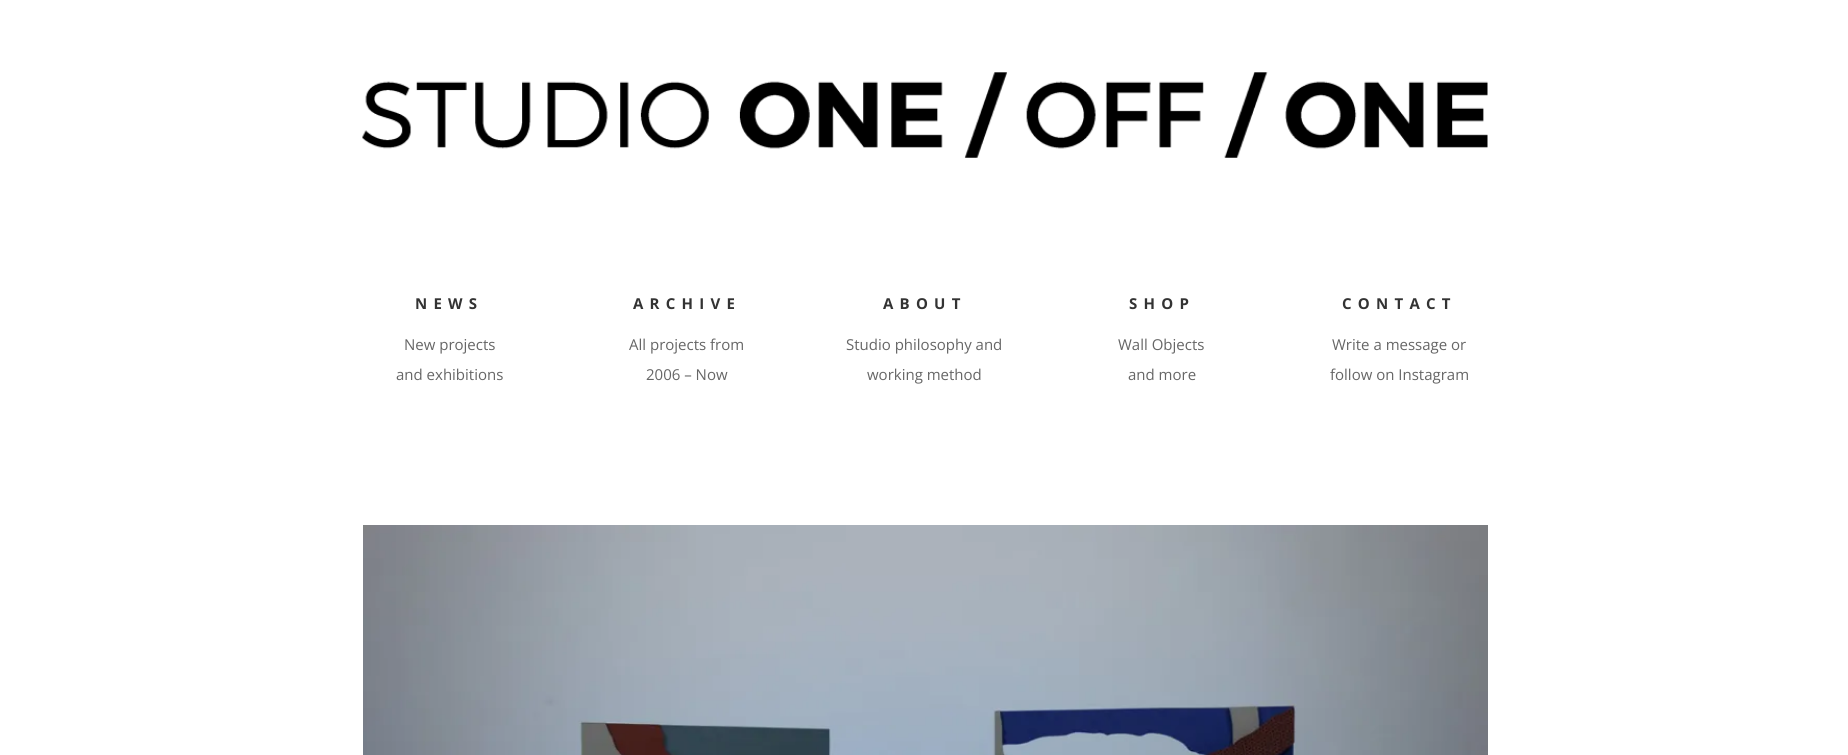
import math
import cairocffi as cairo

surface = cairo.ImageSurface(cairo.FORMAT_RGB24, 1848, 755)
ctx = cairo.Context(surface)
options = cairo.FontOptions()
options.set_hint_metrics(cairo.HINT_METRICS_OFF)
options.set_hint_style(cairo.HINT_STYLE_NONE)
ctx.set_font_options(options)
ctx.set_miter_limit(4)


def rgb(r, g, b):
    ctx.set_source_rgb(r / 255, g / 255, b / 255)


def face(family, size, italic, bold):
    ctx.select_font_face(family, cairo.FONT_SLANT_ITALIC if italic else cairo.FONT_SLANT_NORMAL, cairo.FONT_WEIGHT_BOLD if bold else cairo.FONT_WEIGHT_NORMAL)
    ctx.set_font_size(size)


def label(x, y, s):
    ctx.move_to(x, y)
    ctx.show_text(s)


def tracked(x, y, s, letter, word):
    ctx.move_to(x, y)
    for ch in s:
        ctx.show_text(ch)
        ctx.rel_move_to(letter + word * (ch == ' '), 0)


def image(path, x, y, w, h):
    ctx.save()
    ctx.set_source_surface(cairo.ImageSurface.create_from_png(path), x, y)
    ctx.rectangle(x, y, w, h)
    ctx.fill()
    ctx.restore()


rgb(255, 255, 255)
ctx.paint()
image('image0.png', 362, 72, 1126, 86)
face('Open Sans', 15, 0, 1)
rgb(51, 51, 51)
tracked(415, 309, 'NEWS', 6.25, 0)
face('Open Sans', 15, 0, 0)
rgb(102, 102, 102)
label(404, 350, 'New projects')
label(396, 380, 'and exhibitions')
face('Open Sans', 15, 0, 1)
rgb(51, 51, 51)
tracked(633, 309, 'ARCHIVE', 6.25, 0)
face('Open Sans', 15, 0, 0)
rgb(102, 102, 102)
label(629, 350, 'All projects from')
label(646, 380, '2006 – Now')
face('Open Sans', 15, 0, 1)
rgb(51, 51, 51)
tracked(883, 309, 'ABOUT', 6.25, 0)
face('Open Sans', 15, 0, 0)
rgb(102, 102, 102)
label(846, 350, 'Studio philosophy and')
label(867, 380, 'working method')
face('Open Sans', 15, 0, 1)
rgb(51, 51, 51)
tracked(1129, 309, 'SHOP', 6.25, 0)
face('Open Sans', 15, 0, 0)
rgb(102, 102, 102)
label(1118, 350, 'Wall Objects')
label(1128, 380, 'and more')
face('Open Sans', 15, 0, 1)
rgb(51, 51, 51)
tracked(1342, 309, 'CONTACT', 6.25, 0)
face('Open Sans', 15, 0, 0)
rgb(102, 102, 102)
label(1332, 350, 'Write a message or')
label(1330, 380, 'follow on Instagram')
image('image1.png', 363, 525, 1125, 230)
surface.write_to_png('render.png')
